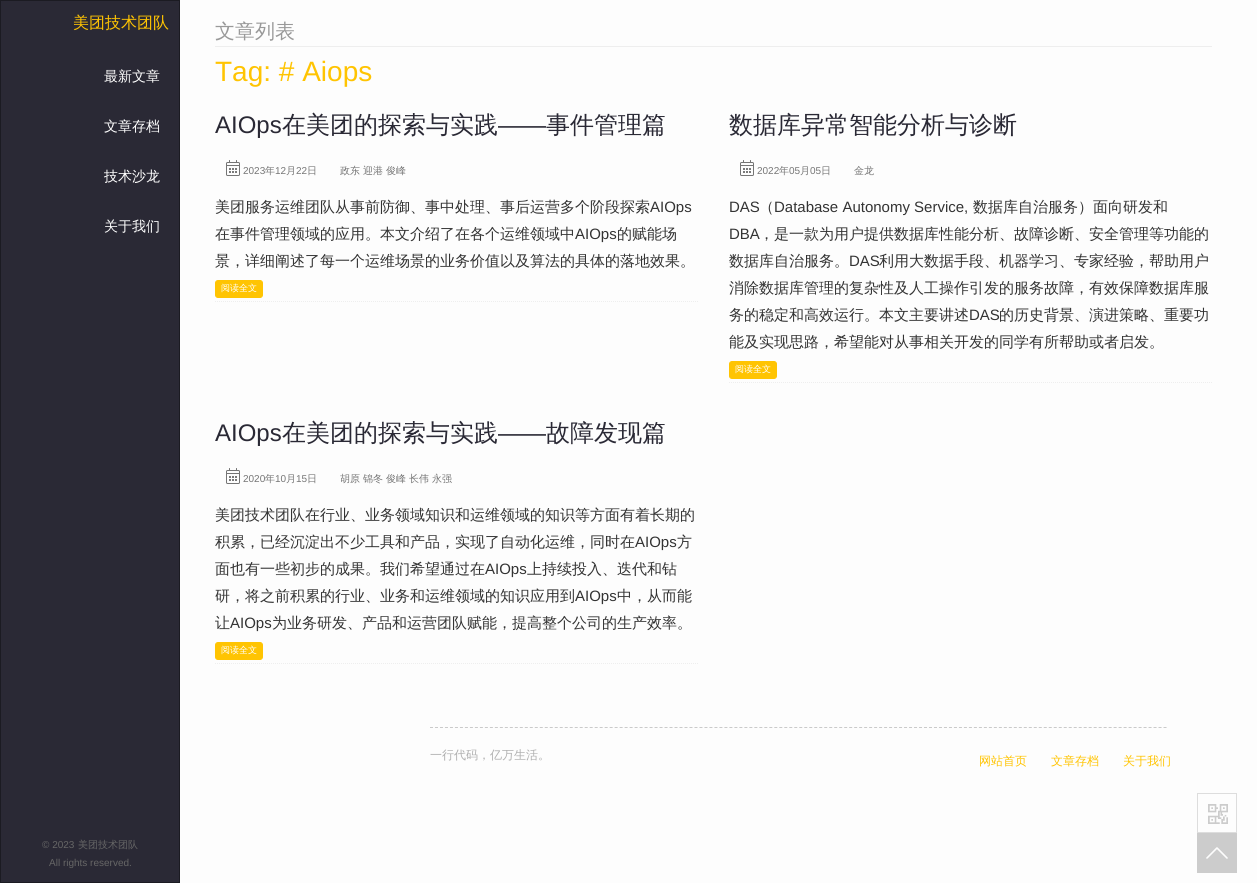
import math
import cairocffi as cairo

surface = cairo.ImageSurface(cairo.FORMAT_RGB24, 1257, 883)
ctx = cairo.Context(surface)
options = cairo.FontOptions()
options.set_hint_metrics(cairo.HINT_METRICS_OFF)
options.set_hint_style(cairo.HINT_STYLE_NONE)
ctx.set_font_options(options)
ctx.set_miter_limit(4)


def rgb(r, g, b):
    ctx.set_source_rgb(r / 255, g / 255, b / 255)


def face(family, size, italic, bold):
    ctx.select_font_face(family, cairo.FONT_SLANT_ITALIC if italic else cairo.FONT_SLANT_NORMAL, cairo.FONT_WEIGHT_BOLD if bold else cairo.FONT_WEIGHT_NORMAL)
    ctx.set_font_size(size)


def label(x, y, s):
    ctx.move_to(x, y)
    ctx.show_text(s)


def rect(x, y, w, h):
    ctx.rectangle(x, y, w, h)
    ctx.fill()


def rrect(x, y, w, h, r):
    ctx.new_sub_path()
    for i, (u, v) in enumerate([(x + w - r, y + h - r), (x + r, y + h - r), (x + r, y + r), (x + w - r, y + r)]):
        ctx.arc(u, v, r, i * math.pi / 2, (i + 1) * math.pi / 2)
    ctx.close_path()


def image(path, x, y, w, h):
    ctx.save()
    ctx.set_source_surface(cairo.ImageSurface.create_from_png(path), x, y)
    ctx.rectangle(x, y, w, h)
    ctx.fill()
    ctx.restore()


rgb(253, 253, 253)
ctx.paint()
rgb(42, 41, 53)
ctx.rectangle(0.5, 0.5, 179, 882)
ctx.fill_preserve()
rgb(27, 27, 34)
ctx.set_line_width(1)
ctx.stroke()
face('WenQuanYi Zen Hei Medium', 16, 0, 0)
rgb(255, 196, 2)
label(73, 28, '美团技术团队')
face('WenQuanYi Zen Hei Medium', 14, 0, 0)
rgb(255, 255, 255)
label(104, 81, '最新文章')
label(104, 131, '文章存档')
label(104, 181, '技术沙龙')
label(104, 231, '关于我们')
face('Liberation Sans', 10, 0, 0)
rgb(102, 102, 102)
label(42, 848, '© 2023')
face('WenQuanYi Zen Hei Medium', 10, 0, 0)
label(78, 848, '美团技术团队')
face('Liberation Sans', 10, 0, 0)
label(49, 866, 'All rights reserved.')
rgb(238, 238, 238)
rect(215, 46, 997, 1)
face('WenQuanYi Zen Hei Medium', 20, 0, 0)
rgb(153, 153, 153)
label(215, 38, '文章列表')
face('Liberation Sans', 28, 0, 0)
rgb(255, 196, 2)
label(215, 81, 'Tag: # Aiops')
ctx.new_path()
ctx.move_to(215, 301.5)
ctx.line_to(699, 301.5)
rgb(238, 238, 238)
ctx.set_dash([1, 1])
ctx.stroke()
face('Liberation Sans', 24, 0, 0)
rgb(42, 41, 53)
label(215, 133, 'AIOps')
face('WenQuanYi Zen Hei Medium', 24, 0, 0)
label(282, 133, '在美团的探索与实践')
face('Liberation Sans', 24, 0, 0)
label(498, 133, '——')
face('WenQuanYi Zen Hei Medium', 24, 0, 0)
label(546, 133, '事件管理篇')
image('image0.png', 226, 160, 14, 16)
face('Liberation Sans', 10, 0, 0)
rgb(117, 117, 117)
label(243, 174, '2023')
face('WenQuanYi Zen Hei Medium', 10, 0, 0)
label(265, 174, '年')
face('Liberation Sans', 10, 0, 0)
label(275, 174, '12')
face('WenQuanYi Zen Hei Medium', 10, 0, 0)
label(286, 174, '月')
face('Liberation Sans', 10, 0, 0)
label(296, 174, '22')
face('WenQuanYi Zen Hei Medium', 10, 0, 0)
label(307, 174, '日')
label(340, 174, '政东 迎港 俊峰')
face('WenQuanYi Zen Hei Medium', 15, 0, 0)
rgb(51, 51, 51)
label(215, 212, '美团服务运维团队从事前防御、事中处理、事后运营多个阶段探索')
face('Liberation Sans', 15, 0, 0)
label(650, 212, 'AIOps')
face('WenQuanYi Zen Hei Medium', 15, 0, 0)
label(215, 239, '在事件管理领域的应用。本文介绍了在各个运维领域中')
face('Liberation Sans', 15, 0, 0)
label(575, 239, 'AIOps')
face('WenQuanYi Zen Hei Medium', 15, 0, 0)
label(617, 239, '的赋能场')
label(215, 266, '景，详细阐述了每一个运维场景的业务价值以及算法的具体的落地效果。')
rgb(255, 196, 2)
rrect(215.5, 280.5, 47, 17, 2.5)
ctx.fill_preserve()
ctx.set_dash([])
ctx.stroke()
face('WenQuanYi Zen Hei Medium', 9, 0, 0)
rgb(255, 255, 255)
label(221, 291, '阅读全文')
ctx.new_path()
ctx.move_to(729, 382.5)
ctx.line_to(1212, 382.5)
rgb(238, 238, 238)
ctx.set_dash([1, 1])
ctx.stroke()
face('WenQuanYi Zen Hei Medium', 24, 0, 0)
rgb(42, 41, 53)
label(729, 133, '数据库异常智能分析与诊断')
image('image0.png', 740, 160, 14, 16)
face('Liberation Sans', 10, 0, 0)
rgb(117, 117, 117)
label(757, 174, '2022')
face('WenQuanYi Zen Hei Medium', 10, 0, 0)
label(779, 174, '年')
face('Liberation Sans', 10, 0, 0)
label(789, 174, '05')
face('WenQuanYi Zen Hei Medium', 10, 0, 0)
label(800, 174, '月')
face('Liberation Sans', 10, 0, 0)
label(810, 174, '05')
face('WenQuanYi Zen Hei Medium', 10, 0, 0)
label(821, 174, '日')
label(854, 174, '金龙')
face('Liberation Sans', 15, 0, 0)
rgb(51, 51, 51)
label(729, 212, 'DAS')
face('WenQuanYi Zen Hei Medium', 15, 0, 0)
label(759, 212, '（')
face('Liberation Sans', 15, 0, 0)
label(774, 212, 'Database Autonomy Service,')
face('WenQuanYi Zen Hei Medium', 15, 0, 0)
label(973, 212, '数据库自治服务）面向研发和')
face('Liberation Sans', 15, 0, 0)
label(729, 239, 'DBA')
face('WenQuanYi Zen Hei Medium', 15, 0, 0)
label(759, 239, '，是一款为用户提供数据库性能分析、故障诊断、安全管理等功能的')
label(729, 266, '数据库自治服务。')
face('Liberation Sans', 15, 0, 0)
label(849, 266, 'DAS')
face('WenQuanYi Zen Hei Medium', 15, 0, 0)
label(879, 266, '利用大数据手段、机器学习、专家经验，帮助用户')
label(729, 293, '消除数据库管理的复杂性及人工操作引发的服务故障，有效保障数据库服')
label(729, 320, '务的稳定和高效运行。本文主要讲述')
face('Liberation Sans', 15, 0, 0)
label(969, 320, 'DAS')
face('WenQuanYi Zen Hei Medium', 15, 0, 0)
label(999, 320, '的历史背景、演进策略、重要功')
label(729, 347, '能及实现思路，希望能对从事相关开发的同学有所帮助或者启发。')
rgb(255, 196, 2)
rrect(729.5, 361.5, 47, 17, 2.5)
ctx.fill_preserve()
ctx.set_dash([])
ctx.stroke()
face('WenQuanYi Zen Hei Medium', 9, 0, 0)
rgb(255, 255, 255)
label(735, 372, '阅读全文')
ctx.new_path()
ctx.move_to(215, 663.5)
ctx.line_to(699, 663.5)
rgb(238, 238, 238)
ctx.set_dash([1, 1])
ctx.stroke()
face('Liberation Sans', 24, 0, 0)
rgb(42, 41, 53)
label(215, 441, 'AIOps')
face('WenQuanYi Zen Hei Medium', 24, 0, 0)
label(282, 441, '在美团的探索与实践')
face('Liberation Sans', 24, 0, 0)
label(498, 441, '——')
face('WenQuanYi Zen Hei Medium', 24, 0, 0)
label(546, 441, '故障发现篇')
image('image0.png', 226, 468, 14, 16)
face('Liberation Sans', 10, 0, 0)
rgb(117, 117, 117)
label(243, 482, '2020')
face('WenQuanYi Zen Hei Medium', 10, 0, 0)
label(265, 482, '年')
face('Liberation Sans', 10, 0, 0)
label(275, 482, '10')
face('WenQuanYi Zen Hei Medium', 10, 0, 0)
label(286, 482, '月')
face('Liberation Sans', 10, 0, 0)
label(296, 482, '15')
face('WenQuanYi Zen Hei Medium', 10, 0, 0)
label(307, 482, '日')
label(340, 482, '胡原 锦冬 俊峰 长伟 永强')
face('WenQuanYi Zen Hei Medium', 15, 0, 0)
rgb(51, 51, 51)
label(215, 520, '美团技术团队在行业、业务领域知识和运维领域的知识等方面有着长期的')
label(215, 547, '积累，已经沉淀出不少工具和产品，实现了自动化运维，同时在')
face('Liberation Sans', 15, 0, 0)
label(635, 547, 'AIOps')
face('WenQuanYi Zen Hei Medium', 15, 0, 0)
label(677, 547, '方')
label(215, 574, '面也有一些初步的成果。我们希望通过在')
face('Liberation Sans', 15, 0, 0)
label(485, 574, 'AIOps')
face('WenQuanYi Zen Hei Medium', 15, 0, 0)
label(527, 574, '上持续投入、迭代和钻')
label(215, 601, '研，将之前积累的行业、业务和运维领域的知识应用到')
face('Liberation Sans', 15, 0, 0)
label(575, 601, 'AIOps')
face('WenQuanYi Zen Hei Medium', 15, 0, 0)
label(617, 601, '中，从而能')
label(215, 628, '让')
face('Liberation Sans', 15, 0, 0)
label(230, 628, 'AIOps')
face('WenQuanYi Zen Hei Medium', 15, 0, 0)
label(272, 628, '为业务研发、产品和运营团队赋能，提高整个公司的生产效率。')
rgb(255, 196, 2)
rrect(215.5, 642.5, 47, 17, 2.5)
ctx.fill_preserve()
ctx.set_dash([])
ctx.stroke()
face('WenQuanYi Zen Hei Medium', 9, 0, 0)
rgb(255, 255, 255)
label(221, 653, '阅读全文')
ctx.new_path()
ctx.move_to(430, 727.5)
ctx.line_to(1167, 727.5)
rgb(202, 202, 202)
ctx.set_dash([3, 1.99])
ctx.stroke()
face('WenQuanYi Zen Hei Medium', 12, 0, 0)
rgb(175, 175, 175)
label(430, 759, '一行代码，亿万生活。')
rgb(255, 196, 2)
label(979, 765, '网站首页')
label(1051, 765, '文章存档')
label(1123, 765, '关于我们')
ctx.rectangle(1197.5, 793.5, 39, 39)
rgb(221, 221, 221)
ctx.set_dash([])
ctx.stroke()
image('image1.png', 1208, 804, 20, 20)
image('image2.png', 1197, 833, 40, 40)
surface.write_to_png('render.png')
